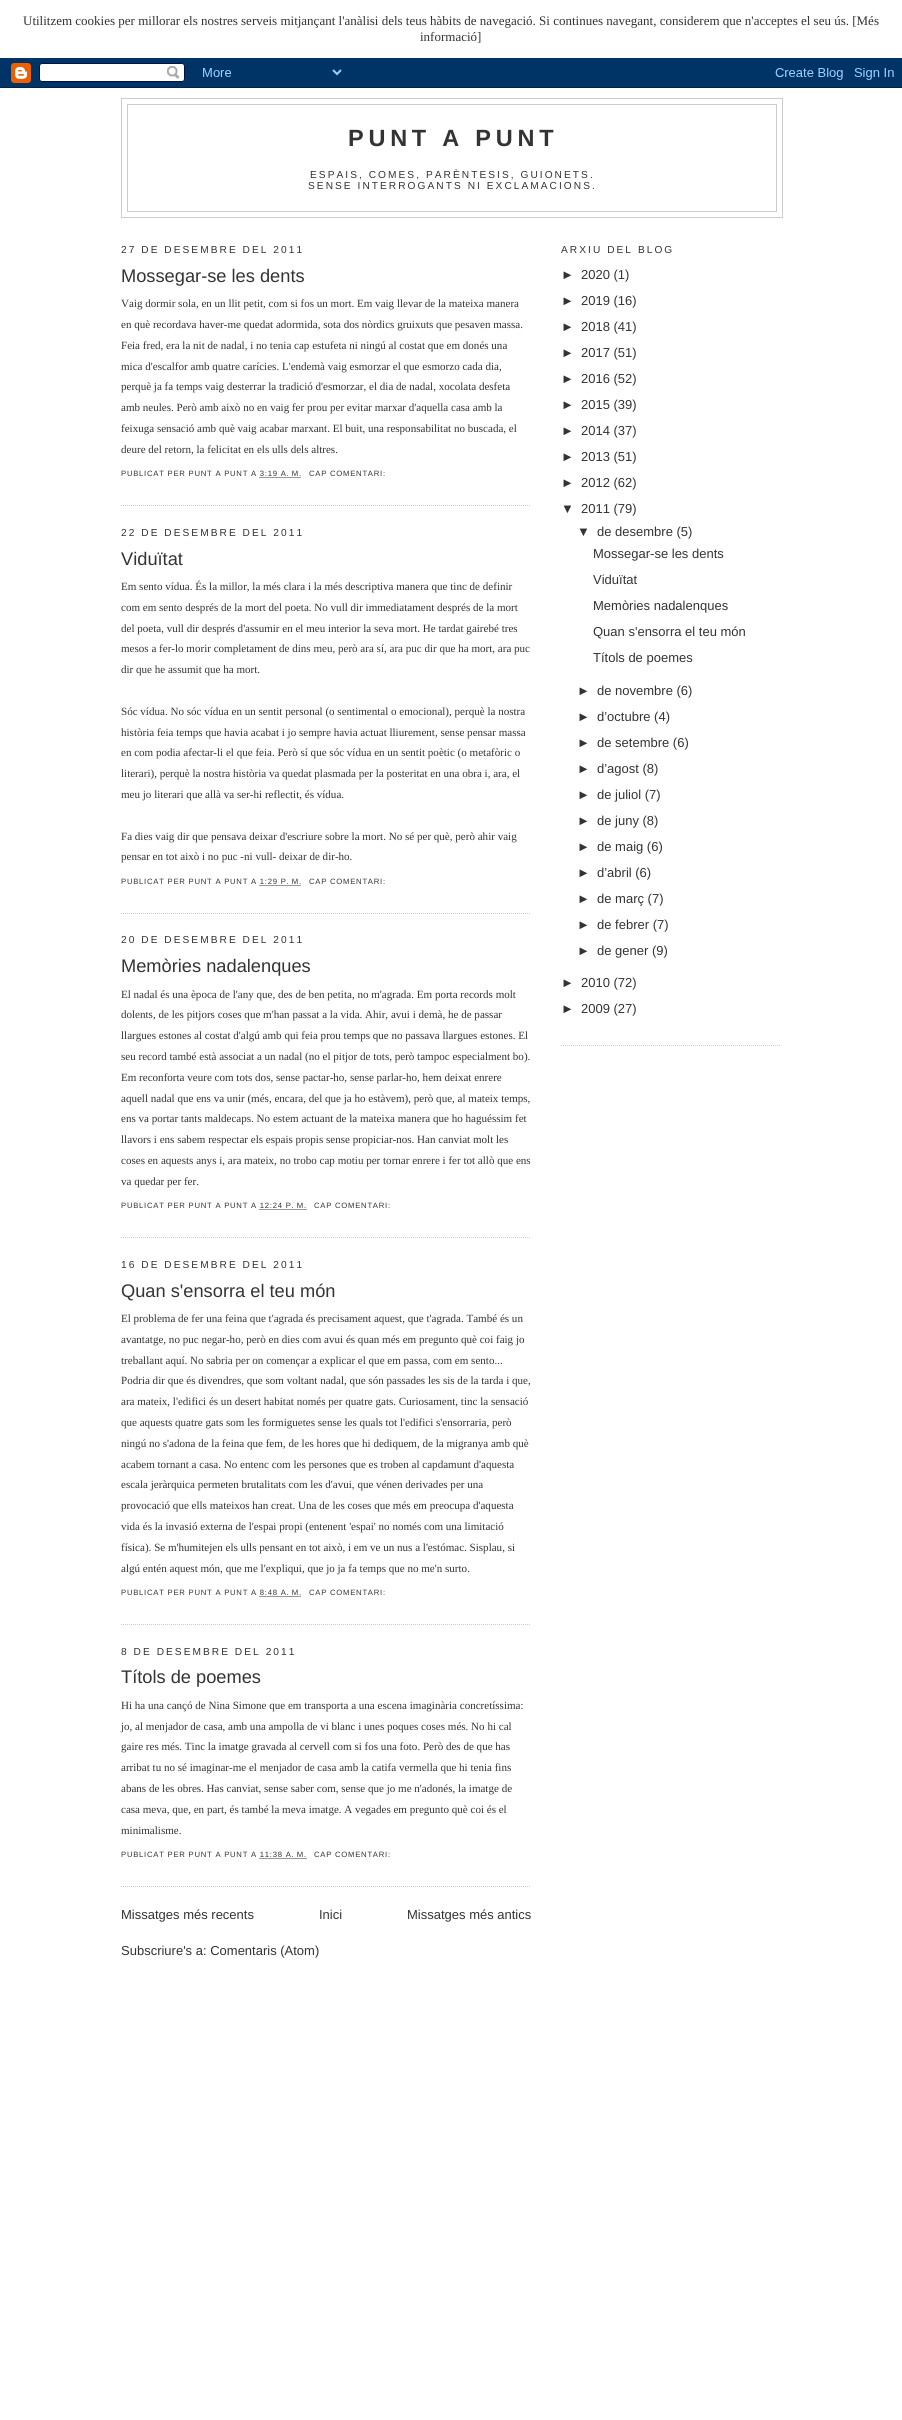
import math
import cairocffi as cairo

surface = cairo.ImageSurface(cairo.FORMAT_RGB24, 902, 2420)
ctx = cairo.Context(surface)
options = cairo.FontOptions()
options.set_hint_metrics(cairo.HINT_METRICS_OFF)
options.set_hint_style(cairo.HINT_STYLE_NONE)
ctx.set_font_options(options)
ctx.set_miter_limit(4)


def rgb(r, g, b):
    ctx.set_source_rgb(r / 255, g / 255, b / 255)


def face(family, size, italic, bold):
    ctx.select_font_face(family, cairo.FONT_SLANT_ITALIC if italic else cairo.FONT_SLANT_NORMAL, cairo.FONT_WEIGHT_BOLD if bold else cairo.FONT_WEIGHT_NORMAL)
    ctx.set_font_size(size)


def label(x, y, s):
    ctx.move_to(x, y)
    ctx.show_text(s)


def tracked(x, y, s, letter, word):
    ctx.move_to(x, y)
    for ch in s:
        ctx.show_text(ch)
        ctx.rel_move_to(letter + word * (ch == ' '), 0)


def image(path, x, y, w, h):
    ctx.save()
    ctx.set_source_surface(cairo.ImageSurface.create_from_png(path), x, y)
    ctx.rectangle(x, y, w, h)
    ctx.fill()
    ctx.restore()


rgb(255, 255, 255)
ctx.paint()
face('Liberation Serif', 13, 0, 0)
rgb(51, 51, 51)
label(23, 25, 'Utilitzem cookies per millorar els nostres serveis mitjançant l\'anàlisi dels teus hàbits de navegació. Si continues navegant, considerem que n\'acceptes el seu ús. [Més')
label(420, 41, 'informació]')
image('image0.png', 0, 58, 902, 30)
ctx.rectangle(121.5, 98.5, 661, 119)
rgb(204, 204, 204)
ctx.set_line_width(1)
ctx.stroke()
ctx.rectangle(127.5, 104.5, 649, 107)
ctx.stroke()
face('Liberation Sans', 23.5, 0, 1)
rgb(51, 51, 51)
tracked(348, 146, 'PUNT A PUNT', 4.75, 0)
face('Liberation Sans', 10.15, 0, 0)
tracked(310, 178, 'ESPAIS, COMES, PARÈNTESIS, GUIONETS.', 2.05, 0)
tracked(308, 189, 'SENSE INTERROGANTS NI EXCLAMACIONS.', 2.05, 0)
tracked(121, 253, '27 DE DESEMBRE DEL 2011', 2.05, 0)
ctx.new_path()
ctx.move_to(121, 505.5)
ctx.line_to(531, 505.5)
rgb(204, 204, 204)
ctx.set_dash([1, 1])
ctx.stroke()
face('Liberation Sans', 18.25, 0, 0)
rgb(51, 51, 51)
label(121, 282, 'Mossegar-se les dents')
face('Liberation Serif', 11.05, 0, 0)
label(121, 307, 'Vaig dormir sola, en un llit petit, com si fos un mort. Em vaig llevar de la mateixa manera')
label(121, 328, 'en què recordava haver-me quedat adormida, sota dos nòrdics gruixuts que pesaven massa.')
label(121, 349, 'Feia fred, era la nit de nadal, i no tenia cap estufeta ni ningú al costat que em donés una')
label(121, 370, 'mica d\'escalfor amb quatre carícies. L\'endemà vaig esmorzar el que esmorzo cada dia,')
label(121, 390, 'perquè ja fa temps vaig desterrar la tradició d\'esmorzar, el dia de nadal, xocolata desfeta')
label(121, 411, 'amb neules. Però amb això no en vaig fer prou per evitar marxar d\'aquella casa amb la')
label(121, 432, 'feixuga sensació amb què vaig acabar marxant. El buit, una responsabilitat no buscada, el')
label(121, 453, 'deure del retorn, la felicitat en els ulls dels altres.')
face('Liberation Sans', 7.7, 0, 0)
tracked(121, 476, 'PUBLICAT PER PUNT A PUNT A 3:19 A. M.', 0.75, 0)
tracked(309, 476, 'CAP COMENTARI:', 0.75, 0)
ctx.new_path()
ctx.move_to(259.5, 477.5)
ctx.line_to(301.5, 477.5)
ctx.stroke()
face('Liberation Sans', 10.15, 0, 0)
tracked(121, 536, '22 DE DESEMBRE DEL 2011', 2.05, 0)
ctx.new_path()
ctx.move_to(121, 913.5)
ctx.line_to(531, 913.5)
rgb(204, 204, 204)
ctx.stroke()
face('Liberation Sans', 18.25, 0, 0)
rgb(51, 51, 51)
label(121, 565, 'Viduïtat')
face('Liberation Serif', 11.05, 0, 0)
label(121, 590, 'Em sento vídua. És la millor, la més clara i la més descriptiva manera que tinc de definir')
label(121, 611, 'com em sento després de la mort del poeta. No vull dir immediatament després de la mort')
label(121, 632, 'del poeta, vull dir després d\'assumir en el meu interior la seva mort. He tardat gairebé tres')
label(121, 652, 'mesos a fer-lo morir completament de dins meu, però ara sí, ara puc dir que ha mort, ara puc')
label(121, 673, 'dir que he assumit que ha mort.')
label(121, 715, 'Sóc vídua. No sóc vídua en un sentit personal (o sentimental o emocional), perquè la nostra')
label(121, 736, 'història feia temps que havia acabat i jo sempre havia actuat lliurement, sense pensar massa')
label(121, 756, 'en com podia afectar-li el que feia. Però sí que sóc vídua en un sentit poètic (o metafòric o')
label(121, 777, 'literari), perquè la nostra història va quedat plasmada per la posteritat en una obra i, ara, el')
label(121, 798, 'meu jo literari que allà va ser-hi reflectit, és vídua.')
label(121, 840, 'Fa dies vaig dir que pensava deixar d\'escriure sobre la mort. No sé per què, però ahir vaig')
label(121, 860, 'pensar en tot això i no puc -ni vull- deixar de dir-ho.')
face('Liberation Sans', 7.7, 0, 0)
tracked(121, 884, 'PUBLICAT PER PUNT A PUNT A 1:29 P. M.', 0.75, 0)
tracked(309, 884, 'CAP COMENTARI:', 0.75, 0)
ctx.new_path()
ctx.move_to(259.5, 885.5)
ctx.line_to(301.5, 885.5)
ctx.stroke()
face('Liberation Sans', 10.15, 0, 0)
tracked(121, 943, '20 DE DESEMBRE DEL 2011', 2.05, 0)
ctx.new_path()
ctx.move_to(121, 1237.5)
ctx.line_to(531, 1237.5)
rgb(204, 204, 204)
ctx.stroke()
face('Liberation Sans', 18.25, 0, 0)
rgb(51, 51, 51)
label(121, 972, 'Memòries nadalenques')
face('Liberation Serif', 11.05, 0, 0)
label(121, 998, 'El nadal és una època de l\'any que, des de ben petita, no m\'agrada. Em porta records molt')
label(121, 1018, 'dolents, de les pitjors coses que m\'han passat a la vida. Ahir, avui i demà, he de passar')
label(121, 1039, 'llargues estones al costat d\'algú amb qui feia prou temps que no passava llargues estones. El')
label(121, 1060, 'seu record també està associat a un nadal (no el pitjor de tots, però tampoc especialment bo).')
label(121, 1081, 'Em reconforta veure com tots dos, sense pactar-ho, sense parlar-ho, hem deixat enrere')
label(121, 1102, 'aquell nadal que ens va unir (més, encara, del que ja ho estàvem), però que, al mateix temps,')
label(121, 1122, 'ens va portar tants maldecaps. No estem actuant de la mateixa manera que ho haguéssim fet')
label(121, 1143, 'llavors i ens sabem respectar els espais propis sense propiciar-nos. Han canviat molt les')
label(121, 1164, 'coses en aquests anys i, ara mateix, no trobo cap motiu per tornar enrere i fer tot allò que ens')
label(121, 1185, 'va quedar per fer.')
face('Liberation Sans', 7.7, 0, 0)
tracked(121, 1208, 'PUBLICAT PER PUNT A PUNT A 12:24 P. M.', 0.75, 0)
tracked(314, 1208, 'CAP COMENTARI:', 0.75, 0)
ctx.new_path()
ctx.move_to(259.5, 1209.5)
ctx.line_to(306.5, 1209.5)
ctx.stroke()
face('Liberation Sans', 10.15, 0, 0)
tracked(121, 1268, '16 DE DESEMBRE DEL 2011', 2.05, 0)
ctx.new_path()
ctx.move_to(121, 1624.5)
ctx.line_to(531, 1624.5)
rgb(204, 204, 204)
ctx.stroke()
face('Liberation Sans', 18.25, 0, 0)
rgb(51, 51, 51)
label(121, 1297, 'Quan s\'ensorra el teu món')
face('Liberation Serif', 11.05, 0, 0)
label(121, 1322, 'El problema de fer una feina que t\'agrada és precisament aquest, que t\'agrada. També és un')
label(121, 1343, 'avantatge, no puc negar-ho, però en dies com avui és quan més em pregunto què coi faig jo')
label(121, 1364, 'treballant aquí. No sabria per on començar a explicar el que em passa, com em sento...')
label(121, 1384, 'Podria dir que és divendres, que som voltant nadal, que són passades les sis de la tarda i que,')
label(121, 1405, 'ara mateix, l\'edifici és un desert habitat només per quatre gats. Curiosament, tinc la sensació')
label(121, 1426, 'que aquests quatre gats som les formiguetes sense les quals tot l\'edifici s\'ensorraria, però')
label(121, 1447, 'ningú no s\'adona de la feina que fem, de les hores que hi dediquem, de la migranya amb què')
label(121, 1468, 'acabem tornant a casa. No entenc com les persones que es troben al capdamunt d\'aquesta')
label(121, 1488, 'escala jeràrquica permeten brutalitats com les d\'avui, que vénen derivades per una')
label(121, 1509, 'provocació que ells mateixos han creat. Una de les coses que més em preocupa d\'aquesta')
label(121, 1530, 'vida és la invasió externa de l\'espai propi (entenent \'espai\' no només com una limitació')
label(121, 1551, 'física). Se m\'humitejen els ulls pensant en tot això, i em ve un nus a l\'estómac. Sisplau, si')
label(121, 1572, 'algú entén aquest món, que me l\'expliqui, que jo ja fa temps que no me\'n surto.')
face('Liberation Sans', 7.7, 0, 0)
tracked(121, 1595, 'PUBLICAT PER PUNT A PUNT A 8:48 A. M.', 0.75, 0)
tracked(309, 1595, 'CAP COMENTARI:', 0.75, 0)
ctx.new_path()
ctx.move_to(259.5, 1596.5)
ctx.line_to(301.5, 1596.5)
ctx.stroke()
face('Liberation Sans', 10.15, 0, 0)
tracked(121, 1655, '8 DE DESEMBRE DEL 2011', 2.05, 0)
ctx.new_path()
ctx.move_to(121, 1886.5)
ctx.line_to(531, 1886.5)
rgb(204, 204, 204)
ctx.stroke()
face('Liberation Sans', 18.25, 0, 0)
rgb(51, 51, 51)
label(121, 1683, 'Títols de poemes')
face('Liberation Serif', 11.05, 0, 0)
label(121, 1709, 'Hi ha una cançó de Nina Simone que em transporta a una escena imaginària concretíssima:')
label(121, 1730, 'jo, al menjador de casa, amb una ampolla de vi blanc i unes poques coses més. No hi cal')
label(121, 1750, 'gaire res més. Tinc la imatge gravada al cervell com si fos una foto. Però des de que has')
label(121, 1771, 'arribat tu no sé imaginar-me el menjador de casa amb la catifa vermella que hi tenia fins')
label(121, 1792, 'abans de les obres. Has canviat, sense saber com, sense que jo me n\'adonés, la imatge de')
label(121, 1813, 'casa meva, que, en part, és també la meva imatge. A vegades em pregunto què coi és el')
label(121, 1834, 'minimalisme.')
face('Liberation Sans', 7.7, 0, 0)
tracked(121, 1857, 'PUBLICAT PER PUNT A PUNT A 11:38 A. M.', 0.75, 0)
tracked(314, 1857, 'CAP COMENTARI:', 0.75, 0)
ctx.new_path()
ctx.move_to(259.5, 1858.5)
ctx.line_to(306.5, 1858.5)
ctx.stroke()
face('Liberation Sans', 13, 0, 0)
label(121, 1919, 'Missatges més recents')
label(319, 1919, 'Inici')
label(407, 1919, 'Missatges més antics')
label(121, 1955, 'Subscriure\'s a: Comentaris (Atom)')
ctx.new_path()
ctx.move_to(561, 1045.5)
ctx.line_to(781, 1045.5)
rgb(204, 204, 204)
ctx.stroke()
face('Liberation Sans', 10.15, 0, 0)
rgb(51, 51, 51)
tracked(561, 253, 'ARXIU DEL BLOG', 2.05, 0)
face('Liberation Sans', 13, 0, 0)
label(561, 279, '►')
label(581, 279, '2020 (1)')
label(561, 305, '►')
label(581, 305, '2019 (16)')
label(561, 331, '►')
label(581, 331, '2018 (41)')
label(561, 357, '►')
label(581, 357, '2017 (51)')
label(561, 383, '►')
label(581, 383, '2016 (52)')
label(561, 409, '►')
label(581, 409, '2015 (39)')
label(561, 435, '►')
label(581, 435, '2014 (37)')
label(561, 461, '►')
label(581, 461, '2013 (51)')
label(561, 487, '►')
label(581, 487, '2012 (62)')
label(561, 513, '▼')
label(581, 513, '2011 (79)')
label(577, 536, '▼')
label(597, 536, 'de desembre (5)')
label(593, 558, 'Mossegar-se les dents')
label(593, 584, 'Viduïtat')
label(593, 610, 'Memòries nadalenques')
label(593, 636, 'Quan s\'ensorra el teu món')
label(593, 662, 'Títols de poemes')
label(577, 695, '►')
label(597, 695, 'de novembre (6)')
label(577, 721, '►')
label(597, 721, 'd’octubre (4)')
label(577, 747, '►')
label(597, 747, 'de setembre (6)')
label(577, 773, '►')
label(597, 773, 'd’agost (8)')
label(577, 799, '►')
label(597, 799, 'de juliol (7)')
label(577, 825, '►')
label(597, 825, 'de juny (8)')
label(577, 851, '►')
label(597, 851, 'de maig (6)')
label(577, 877, '►')
label(597, 877, 'd’abril (6)')
label(577, 903, '►')
label(597, 903, 'de març (7)')
label(577, 929, '►')
label(597, 929, 'de febrer (7)')
label(577, 955, '►')
label(597, 955, 'de gener (9)')
label(561, 987, '►')
label(581, 987, '2010 (72)')
label(561, 1013, '►')
label(581, 1013, '2009 (27)')
surface.write_to_png('render.png')
